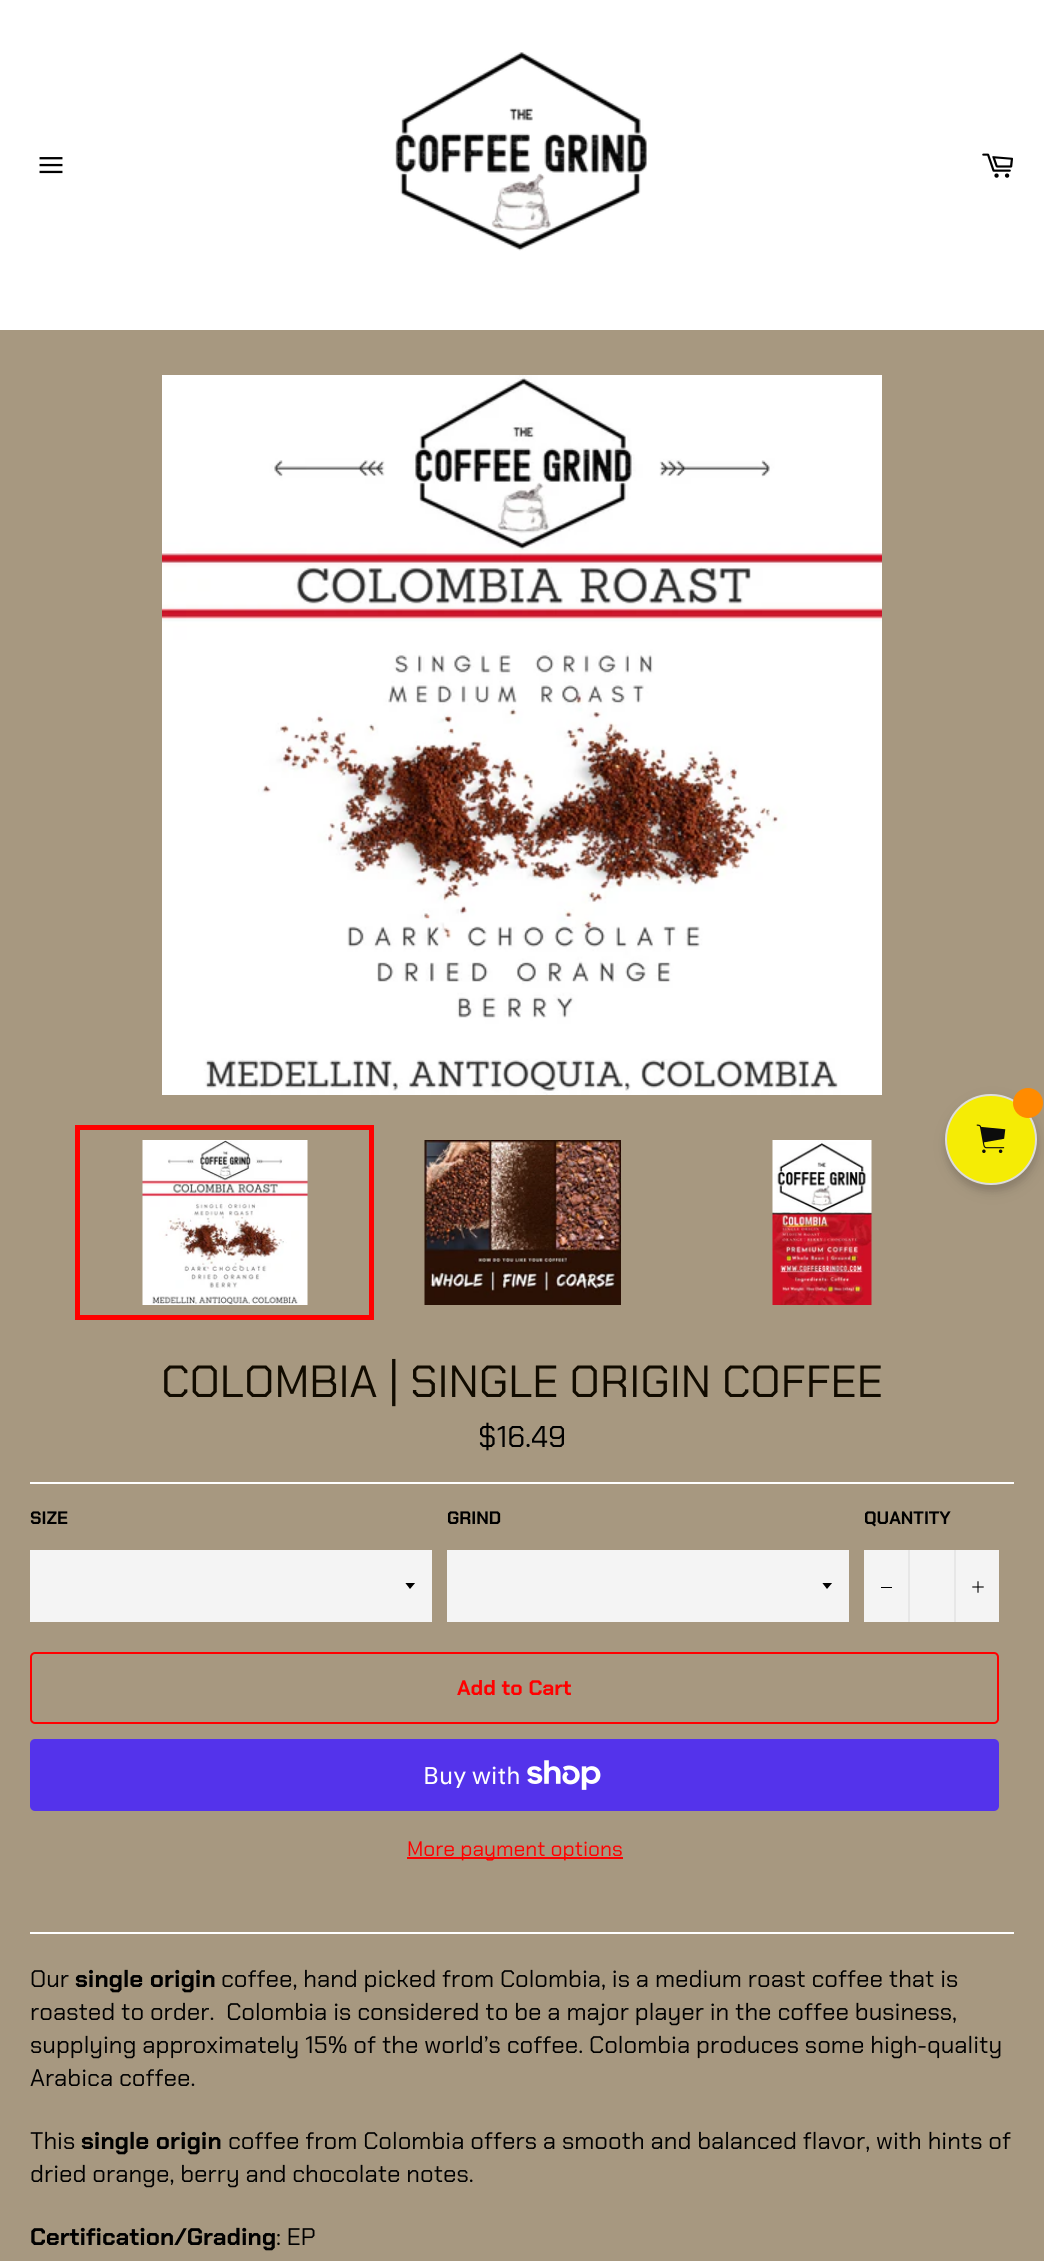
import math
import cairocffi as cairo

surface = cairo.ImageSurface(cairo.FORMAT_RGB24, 1044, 2261)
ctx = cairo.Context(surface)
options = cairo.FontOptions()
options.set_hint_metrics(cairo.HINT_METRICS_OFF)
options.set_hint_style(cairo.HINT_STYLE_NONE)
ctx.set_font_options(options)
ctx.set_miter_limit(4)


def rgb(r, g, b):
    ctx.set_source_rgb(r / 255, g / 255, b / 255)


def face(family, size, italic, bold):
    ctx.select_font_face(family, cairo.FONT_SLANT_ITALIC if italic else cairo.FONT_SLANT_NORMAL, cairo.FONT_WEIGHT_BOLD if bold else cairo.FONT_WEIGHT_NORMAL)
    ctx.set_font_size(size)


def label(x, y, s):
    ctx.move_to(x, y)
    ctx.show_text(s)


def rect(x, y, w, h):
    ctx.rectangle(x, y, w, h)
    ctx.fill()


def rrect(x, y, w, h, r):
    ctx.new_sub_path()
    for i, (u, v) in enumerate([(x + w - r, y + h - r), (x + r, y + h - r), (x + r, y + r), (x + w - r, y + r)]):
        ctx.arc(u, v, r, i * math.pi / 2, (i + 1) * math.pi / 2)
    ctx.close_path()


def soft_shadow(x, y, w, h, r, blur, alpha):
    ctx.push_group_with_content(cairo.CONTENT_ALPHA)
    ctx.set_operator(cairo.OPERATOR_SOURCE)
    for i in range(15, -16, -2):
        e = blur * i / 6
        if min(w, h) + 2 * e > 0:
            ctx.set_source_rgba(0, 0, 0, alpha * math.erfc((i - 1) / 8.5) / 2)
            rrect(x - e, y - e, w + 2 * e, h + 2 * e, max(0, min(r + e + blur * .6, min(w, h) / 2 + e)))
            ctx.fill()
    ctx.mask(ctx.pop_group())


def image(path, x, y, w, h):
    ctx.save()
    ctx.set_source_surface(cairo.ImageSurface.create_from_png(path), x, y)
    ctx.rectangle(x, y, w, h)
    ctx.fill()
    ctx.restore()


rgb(255, 255, 255)
ctx.paint()
image('image0.png', 39, 157, 24, 17)
image('image1.png', 395, 52, 252, 199)
image('image2.png', 982, 153, 31, 25)
rgb(167, 152, 128)
rect(0, 330, 1044, 1931)
rgb(0, 0, 0)
soft_shadow(945, 1100, 92, 91, 45.5, 3, 0.08)
soft_shadow(947, 1100, 91, 91, 45.5, 7.5, 0.12)
rgb(245, 236, 5)
rrect(946, 1095, 90, 89, 44.5)
ctx.fill_preserve()
rgb(221, 221, 221)
ctx.stroke()
rgb(255, 139, 0)
ctx.arc(1028, 1103, 15, 0, 2 * math.pi)
ctx.fill()
image('image3.png', 976, 1124, 30, 29)
image('image4.png', 162, 375, 720, 720)
image('image5.png', 142, 1140, 166, 165)
ctx.rectangle(77.5, 1127.5, 294, 190)
rgb(255, 0, 0)
ctx.set_line_width(5)
ctx.stroke()
image('image6.png', 424, 1140, 197, 165)
image('image7.png', 772, 1140, 100, 165)
face('Chakra Petch', 45, 0, 0)
rgb(17, 11, 0)
label(161, 1397, 'COLOMBIA | SINGLE ORIGIN COFFEE')
face('Chakra Petch', 30, 0, 0)
rgb(0, 0, 0)
label(478, 1447, '$16.49')
rgb(255, 255, 255)
rect(30, 1482, 984, 2)
face('Chakra Petch', 18, 0, 1)
rgb(0, 0, 0)
label(30, 1524, 'SIZE')
rgb(244, 244, 244)
rect(30, 1550, 402, 72)
ctx.save()
ctx.rectangle(405, 1583, 12, 7)
ctx.clip()
rgb(0, 0, 0)
ctx.new_path()
ctx.move_to(405, 1582.5)
ctx.line_to(410, 1589)
ctx.line_to(415.5, 1582.5)
ctx.close_path()
ctx.fill()
ctx.restore()
rgb(0, 0, 0)
label(447, 1524, 'GRIND')
rgb(244, 244, 244)
rect(447, 1550, 402, 72)
ctx.save()
ctx.rectangle(822, 1583, 12, 7)
ctx.clip()
rgb(0, 0, 0)
ctx.new_path()
ctx.move_to(822, 1582.5)
ctx.line_to(827, 1589)
ctx.line_to(832.5, 1582.5)
ctx.close_path()
ctx.fill()
ctx.restore()
rgb(0, 0, 0)
label(864, 1524, 'QUANTITY')
rgb(244, 244, 244)
rect(864, 1550, 135, 72)
rgb(231, 231, 231)
rect(908, 1550, 2, 72)
rgb(0, 0, 0)
rect(881, 1587, 11, 1)
rgb(231, 231, 231)
rect(954, 1550, 2, 72)
image('image8.png', 972, 1581, 12, 12)
rrect(31, 1653, 967, 70, 4)
rgb(255, 0, 0)
ctx.set_line_width(2)
ctx.stroke()
face('Chakra Petch', 21, 0, 1)
label(457, 1695, 'Add to Cart')
rgb(84, 51, 235)
rrect(30, 1739, 969, 72, 5)
ctx.fill()
face('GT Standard', 24, 0, 0)
rgb(255, 255, 255)
label(423, 1784, 'Buy with')
image('image9.png', 527, 1760, 74, 30)
rgb(255, 0, 0)
rect(407, 1857, 216, 2)
face('Chakra Petch', 21, 0, 0)
label(407, 1856, 'More payment options')
rgb(255, 255, 255)
rect(30, 1932, 984, 2)
face('Chakra Petch', 24, 0, 0)
rgb(0, 0, 0)
label(30, 1987, 'Our')
face('Chakra Petch', 24, 0, 1)
label(75, 1987, 'single origin')
face('Chakra Petch', 24, 0, 0)
label(221, 1987, 'coffee, hand picked from Colombia, is a medium roast coffee that is')
label(30, 2020, 'roasted to order.  Colombia is considered to be a major player in the coffee business,')
label(30, 2053, 'supplying approximately 15% of the world’s coffee. Colombia produces some high-quality')
label(30, 2086, 'Arabica coffee.')
label(30, 2149, 'This')
face('Chakra Petch', 24, 0, 1)
label(81, 2149, 'single origin')
face('Chakra Petch', 24, 0, 0)
label(228, 2149, 'coffee from Colombia offers a smooth and balanced flavor, with hints of')
label(30, 2182, 'dried orange, berry and chocolate notes.')
face('Chakra Petch', 24, 0, 1)
label(30, 2245, 'Certification/Grading')
face('Chakra Petch', 24, 0, 0)
label(276, 2245, ': EP')
surface.write_to_png('render.png')
